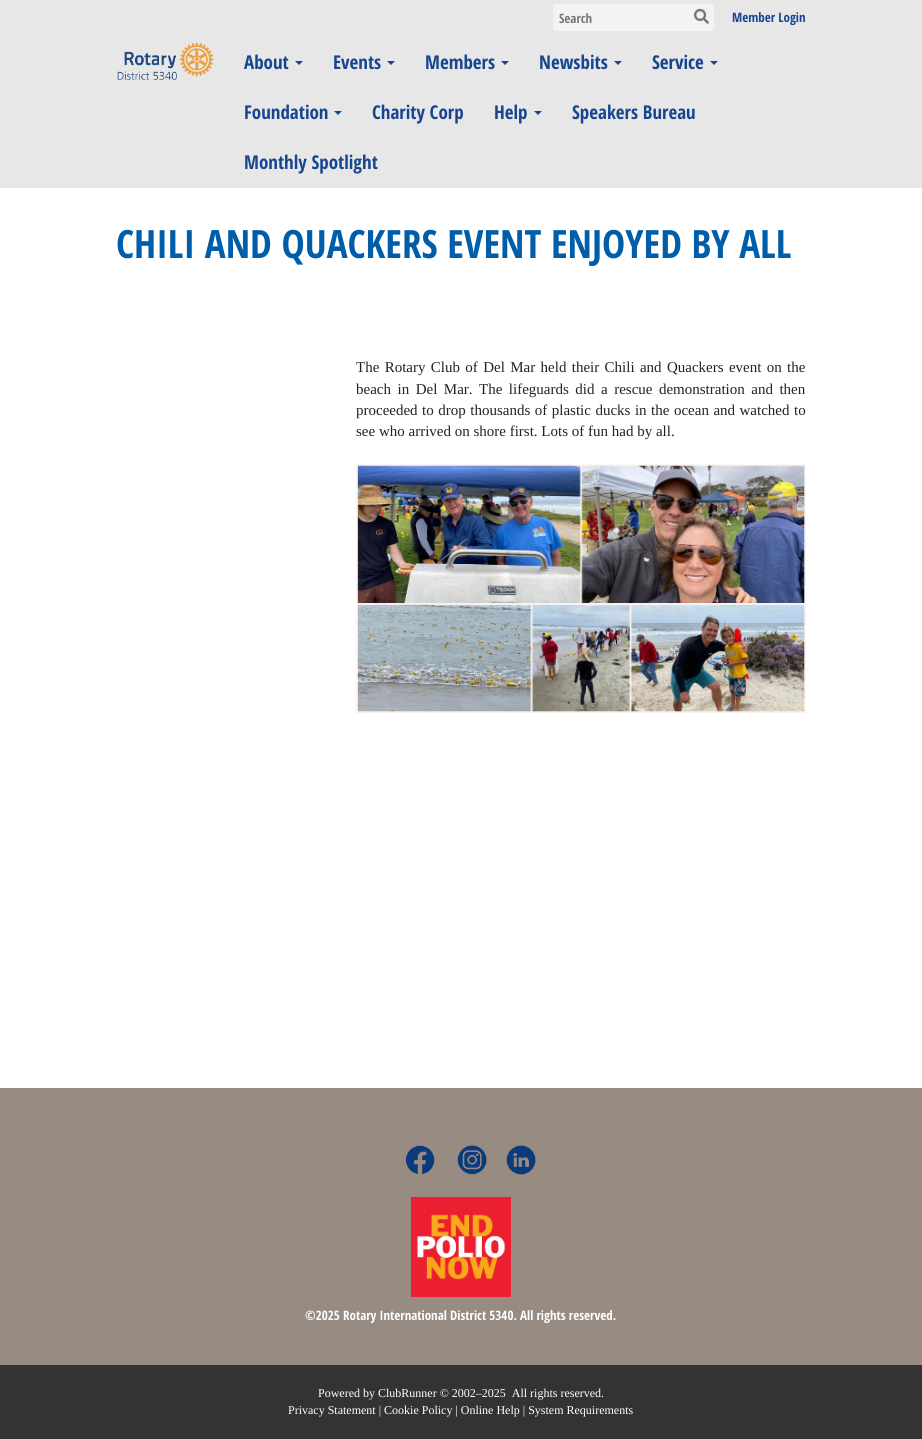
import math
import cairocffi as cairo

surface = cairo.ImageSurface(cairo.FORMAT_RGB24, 922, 1439)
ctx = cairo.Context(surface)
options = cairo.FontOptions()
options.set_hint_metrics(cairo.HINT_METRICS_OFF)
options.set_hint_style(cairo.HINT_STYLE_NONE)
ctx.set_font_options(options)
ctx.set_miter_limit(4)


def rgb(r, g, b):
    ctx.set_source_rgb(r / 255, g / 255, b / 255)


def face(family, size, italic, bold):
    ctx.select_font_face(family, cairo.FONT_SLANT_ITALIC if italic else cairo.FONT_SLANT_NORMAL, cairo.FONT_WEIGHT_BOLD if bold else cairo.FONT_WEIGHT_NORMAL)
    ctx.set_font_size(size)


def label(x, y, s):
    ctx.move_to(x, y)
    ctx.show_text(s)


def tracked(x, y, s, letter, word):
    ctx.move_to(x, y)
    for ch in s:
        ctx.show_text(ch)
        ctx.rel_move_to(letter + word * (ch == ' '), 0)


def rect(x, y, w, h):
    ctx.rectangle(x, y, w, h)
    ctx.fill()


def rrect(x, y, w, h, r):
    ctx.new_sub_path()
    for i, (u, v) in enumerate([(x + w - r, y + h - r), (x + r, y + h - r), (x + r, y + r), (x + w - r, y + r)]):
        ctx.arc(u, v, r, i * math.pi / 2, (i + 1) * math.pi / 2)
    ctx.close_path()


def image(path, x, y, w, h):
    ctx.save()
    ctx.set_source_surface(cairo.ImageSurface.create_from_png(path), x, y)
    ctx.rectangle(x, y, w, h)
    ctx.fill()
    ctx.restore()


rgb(255, 255, 255)
ctx.paint()
rgb(231, 231, 232)
rect(0, 0, 922, 188)
rgb(243, 243, 244)
rrect(553, 4, 161, 27, 4)
ctx.fill()
face('Open Sans Condensed', 13, 0, 1)
rgb(119, 119, 119)
label(559, 23, 'Search')
image('image0.png', 694, 8, 15, 16)
rgb(23, 69, 143)
label(732, 22, 'Member Login')
image('image1.png', 117, 42, 97, 38)
face('Open Sans Condensed', 19, 0, 1)
label(244, 69, 'About')
ctx.new_path()
ctx.move_to(295, 61)
ctx.line_to(303, 61)
ctx.line_to(299, 65)
ctx.close_path()
ctx.fill()
label(333, 69, 'Events')
ctx.new_path()
ctx.move_to(387, 61)
ctx.line_to(395, 61)
ctx.line_to(391, 65)
ctx.close_path()
ctx.fill()
label(425, 69, 'Members')
ctx.new_path()
ctx.move_to(501, 61)
ctx.line_to(509, 61)
ctx.line_to(505, 65)
ctx.close_path()
ctx.fill()
label(539, 69, 'Newsbits')
ctx.new_path()
ctx.move_to(614, 61)
ctx.line_to(622, 61)
ctx.line_to(618, 65)
ctx.close_path()
ctx.fill()
label(652, 69, 'Service')
ctx.new_path()
ctx.move_to(710, 61)
ctx.line_to(718, 61)
ctx.line_to(714, 65)
ctx.close_path()
ctx.fill()
label(244, 119, 'Foundation')
ctx.new_path()
ctx.move_to(334, 111)
ctx.line_to(342, 111)
ctx.line_to(338, 115)
ctx.close_path()
ctx.fill()
label(372, 119, 'Charity Corp')
label(494, 119, 'Help')
ctx.new_path()
ctx.move_to(534, 111)
ctx.line_to(542, 111)
ctx.line_to(538, 115)
ctx.close_path()
ctx.fill()
label(572, 119, 'Speakers Bureau')
label(244, 169, 'Monthly Spotlight')
face('Open Sans Condensed', 39, 0, 1)
rgb(0, 93, 170)
label(116, 258, 'CHILI AND QUACKERS EVENT ENJOYED BY ALL')
face('Liberation Serif', 15, 0, 0)
rgb(34, 34, 34)
tracked(356, 372, 'The Rotary Club of Del Mar held their Chili and Quackers event on the', 0, 1.6)
tracked(356, 394, 'beach in Del Mar. The lifeguards did a rescue demonstration and then', 0, 2.75)
tracked(356, 415, 'proceeded to drop thousands of plastic ducks in the ocean and watched to', 0, 0.75)
label(356, 436, 'see who arrived on shore first. Lots of fun had by all.')
image('image2.png', 356, 464, 450, 249)
rgb(51, 51, 51)
rect(0, 1365, 922, 74)
rgb(151, 139, 130)
rect(0, 1088, 922, 277)
image('image3.png', 405, 1145, 30, 30)
image('image4.png', 457, 1145, 30, 30)
image('image5.png', 506, 1145, 30, 30)
image('image6.png', 411, 1197, 100, 100)
face('Open Sans Condensed', 13, 0, 1)
rgb(255, 255, 255)
label(305, 1320, '©2025 Rotary International District 5340. All rights reserved.')
face('Liberation Serif', 12, 0, 0)
label(318, 1397, 'Powered by ClubRunner © 2002–2025  All rights reserved.')
label(288, 1414, 'Privacy Statement | Cookie Policy | Online Help | System Requirements')
surface.write_to_png('render.png')
